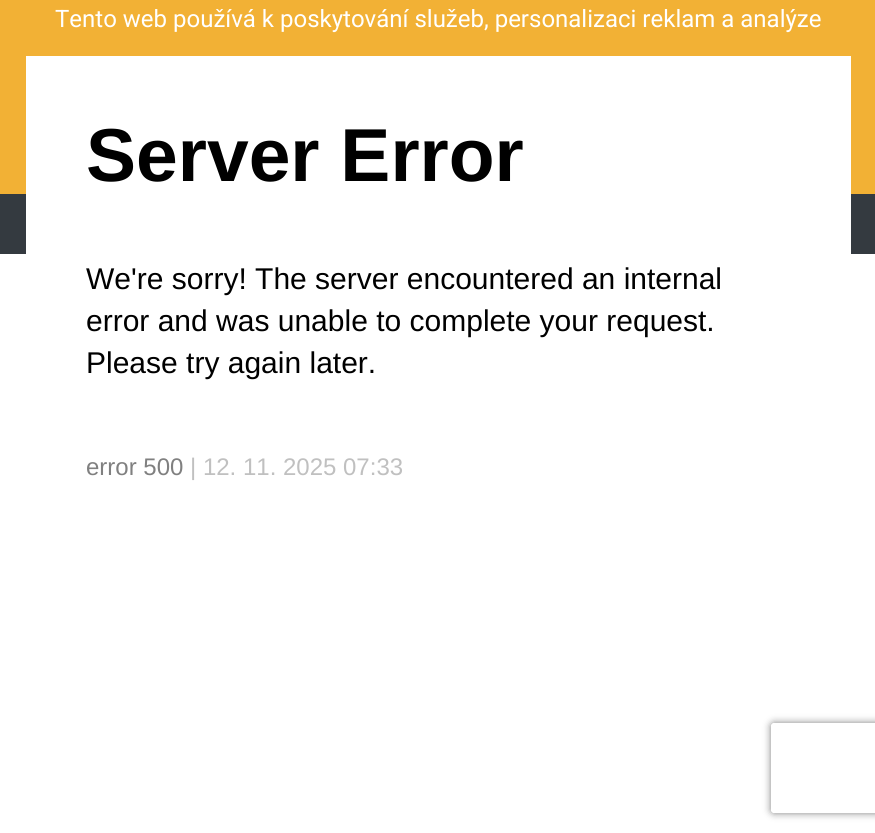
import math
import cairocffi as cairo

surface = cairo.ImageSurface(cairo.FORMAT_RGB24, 875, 833)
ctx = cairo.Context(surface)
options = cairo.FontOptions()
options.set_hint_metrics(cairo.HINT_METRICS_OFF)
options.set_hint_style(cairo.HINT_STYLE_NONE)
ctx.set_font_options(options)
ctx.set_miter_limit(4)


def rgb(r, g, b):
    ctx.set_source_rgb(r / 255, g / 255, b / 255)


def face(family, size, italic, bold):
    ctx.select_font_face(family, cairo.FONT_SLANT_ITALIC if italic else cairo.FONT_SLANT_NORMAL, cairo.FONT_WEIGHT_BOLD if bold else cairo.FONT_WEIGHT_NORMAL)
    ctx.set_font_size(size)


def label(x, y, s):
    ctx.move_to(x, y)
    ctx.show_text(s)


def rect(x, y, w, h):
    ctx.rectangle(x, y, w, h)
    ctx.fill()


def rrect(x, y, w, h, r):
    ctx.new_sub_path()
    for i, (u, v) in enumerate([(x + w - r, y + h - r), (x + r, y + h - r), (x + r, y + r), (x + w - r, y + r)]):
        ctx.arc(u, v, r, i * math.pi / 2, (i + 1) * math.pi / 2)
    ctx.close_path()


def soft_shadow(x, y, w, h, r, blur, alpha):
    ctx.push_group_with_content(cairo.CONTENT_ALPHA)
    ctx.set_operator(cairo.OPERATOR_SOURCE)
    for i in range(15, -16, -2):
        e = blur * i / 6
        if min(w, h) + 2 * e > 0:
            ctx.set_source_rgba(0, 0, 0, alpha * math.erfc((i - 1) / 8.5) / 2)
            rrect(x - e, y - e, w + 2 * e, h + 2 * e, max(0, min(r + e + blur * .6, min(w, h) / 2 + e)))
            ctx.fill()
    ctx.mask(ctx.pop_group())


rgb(255, 255, 255)
ctx.paint()
rgb(242, 177, 53)
rect(0, 0, 875, 194)
face('Roboto', 24, 0, 0)
rgb(255, 255, 255)
label(55, 27, 'Tento web používá k poskytování služeb, personalizaci reklam a analýze')
rgb(52, 58, 64)
rect(0, 194, 875, 60)
rgb(255, 255, 255)
rect(26, 56, 825, 198)
face('Liberation Sans', 75, 0, 1)
rgb(0, 0, 0)
label(86, 181, 'Server Error')
face('Liberation Sans', 30, 0, 0)
label(86, 289, 'We\'re sorry! The server encountered an internal')
label(86, 331, 'error and was unable to complete your request.')
label(86, 373, 'Please try again later.')
face('Liberation Sans', 24, 0, 0)
rgb(128, 128, 128)
label(86, 475, 'error 500')
rgb(192, 192, 192)
label(190, 475, '| 12. 11. 2025 07:33')
ctx.save()
ctx.set_fill_rule(cairo.FILL_RULE_EVEN_ODD)
ctx.new_path()
ctx.move_to(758, 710)
ctx.line_to(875, 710)
ctx.line_to(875, 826)
ctx.line_to(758, 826)
ctx.close_path()
ctx.move_to(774, 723)
ctx.line_to(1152, 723)
ctx.curve_to(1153.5, 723, 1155, 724.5, 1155, 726)
ctx.line_to(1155, 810)
ctx.curve_to(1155, 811.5, 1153.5, 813, 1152, 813)
ctx.line_to(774, 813)
ctx.curve_to(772.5, 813, 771, 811.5, 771, 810)
ctx.line_to(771, 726)
ctx.curve_to(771, 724.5, 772.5, 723, 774, 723)
ctx.close_path()
ctx.clip()
rgb(128, 128, 128)
soft_shadow(771, 723, 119, 90, 3, 4, 1)
ctx.restore()
surface.write_to_png('render.png')
